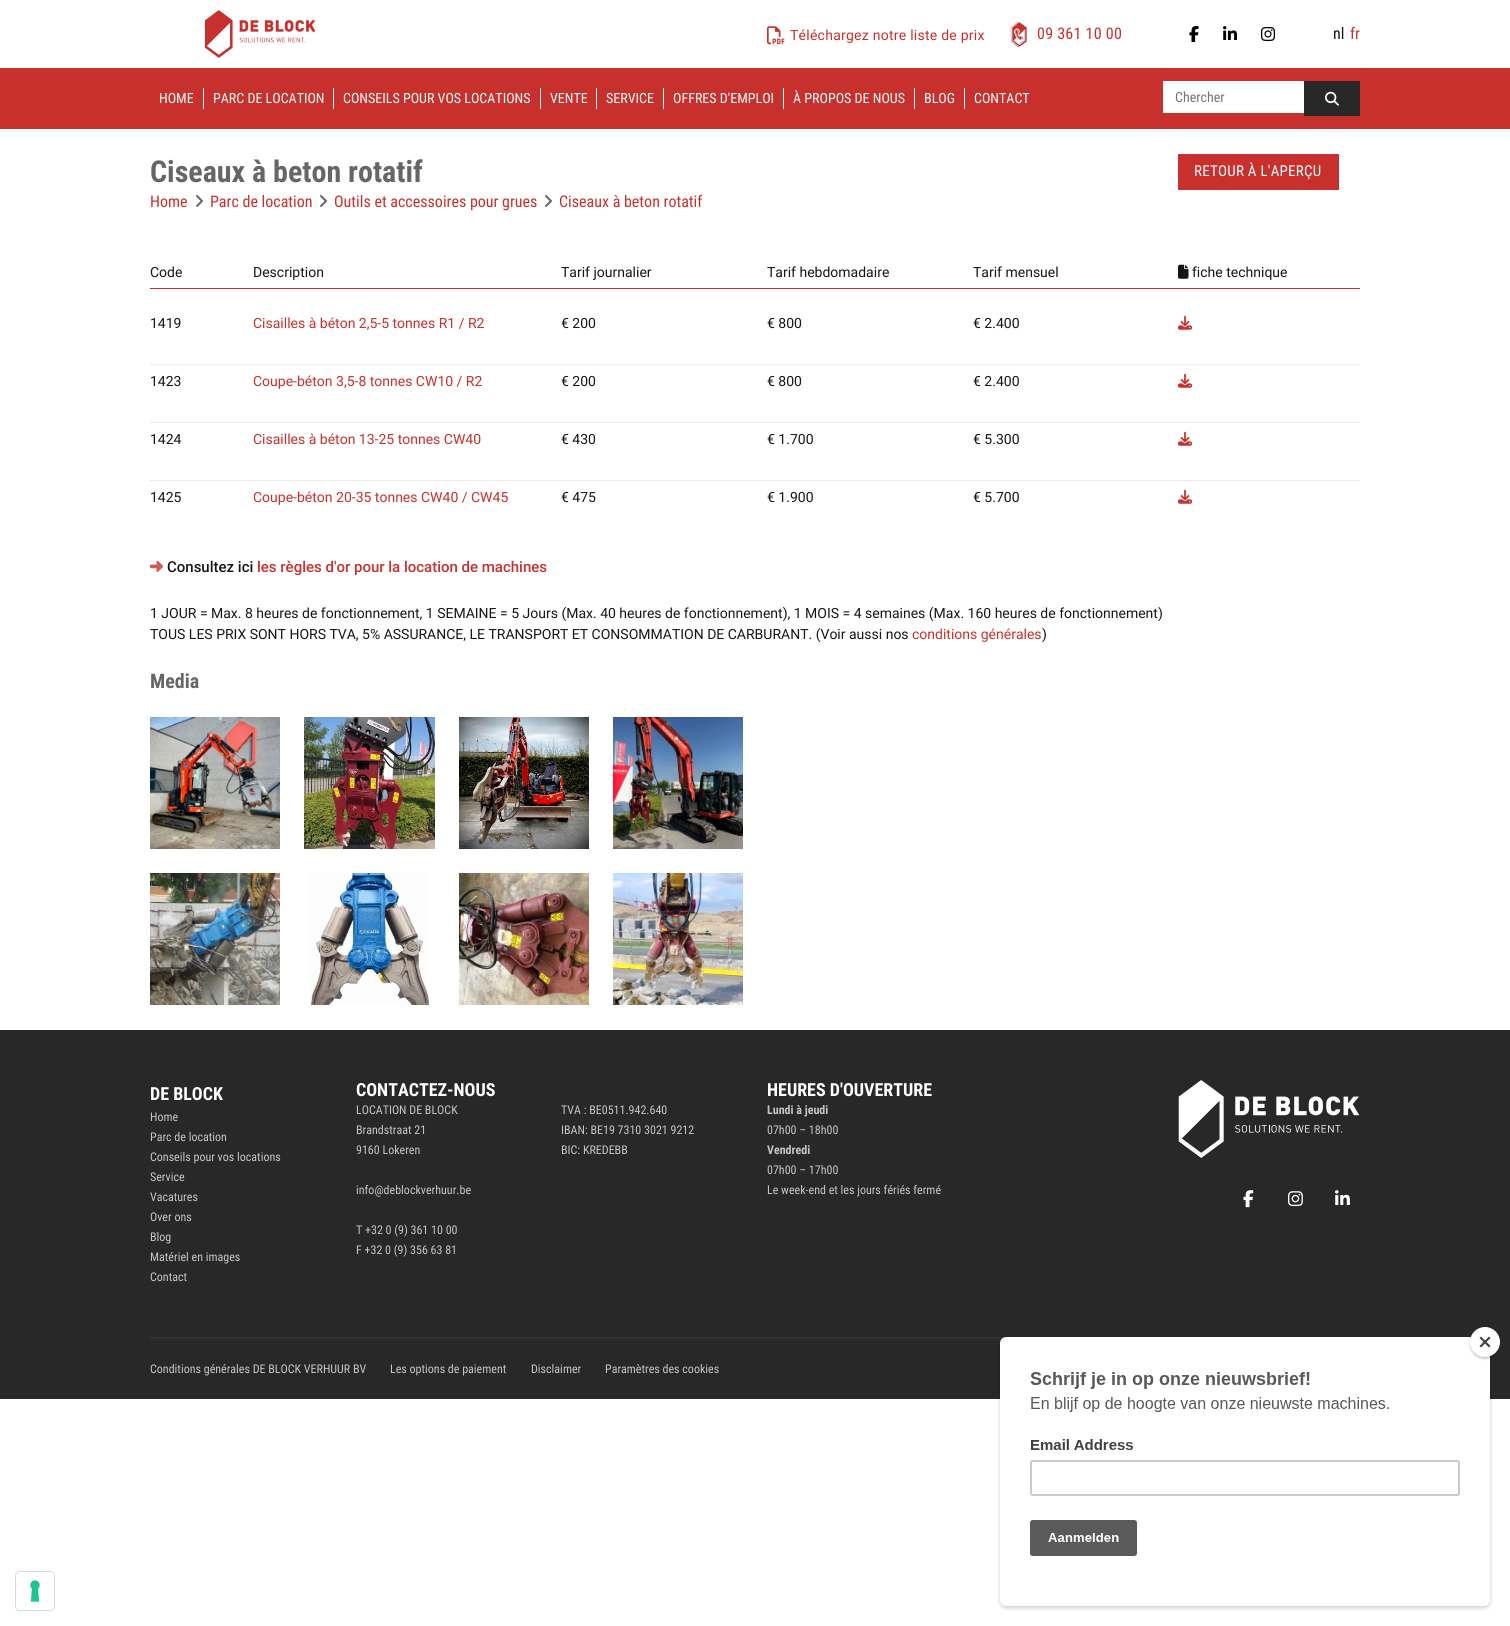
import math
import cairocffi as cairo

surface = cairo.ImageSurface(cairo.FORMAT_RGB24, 1510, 1626)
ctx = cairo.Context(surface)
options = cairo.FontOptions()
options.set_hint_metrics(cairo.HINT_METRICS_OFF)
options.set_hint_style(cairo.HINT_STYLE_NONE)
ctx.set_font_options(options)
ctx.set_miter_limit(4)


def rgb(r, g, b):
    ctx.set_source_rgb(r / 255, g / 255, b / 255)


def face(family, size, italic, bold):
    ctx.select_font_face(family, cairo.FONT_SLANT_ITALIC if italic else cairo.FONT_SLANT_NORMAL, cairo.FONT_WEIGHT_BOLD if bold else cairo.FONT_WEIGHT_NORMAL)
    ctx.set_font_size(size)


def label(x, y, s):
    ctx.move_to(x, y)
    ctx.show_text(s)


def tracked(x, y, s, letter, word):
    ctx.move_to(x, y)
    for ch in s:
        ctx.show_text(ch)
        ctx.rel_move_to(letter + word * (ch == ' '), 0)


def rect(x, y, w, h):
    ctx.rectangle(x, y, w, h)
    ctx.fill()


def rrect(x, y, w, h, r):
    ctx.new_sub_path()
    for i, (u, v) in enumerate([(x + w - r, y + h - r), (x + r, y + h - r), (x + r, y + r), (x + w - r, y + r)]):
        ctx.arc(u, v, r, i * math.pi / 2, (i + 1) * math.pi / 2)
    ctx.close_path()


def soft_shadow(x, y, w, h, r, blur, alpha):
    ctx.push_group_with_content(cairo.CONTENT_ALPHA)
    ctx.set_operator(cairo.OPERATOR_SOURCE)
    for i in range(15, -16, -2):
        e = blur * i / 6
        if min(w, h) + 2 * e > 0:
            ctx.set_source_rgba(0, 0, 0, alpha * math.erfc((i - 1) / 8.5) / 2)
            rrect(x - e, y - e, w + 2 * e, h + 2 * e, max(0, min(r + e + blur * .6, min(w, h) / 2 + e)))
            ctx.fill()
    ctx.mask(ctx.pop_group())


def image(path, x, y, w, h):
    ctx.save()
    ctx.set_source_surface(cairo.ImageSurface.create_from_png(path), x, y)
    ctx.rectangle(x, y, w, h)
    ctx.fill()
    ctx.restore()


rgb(255, 255, 255)
ctx.paint()
image('image0.png', 205, 10, 110, 48)
image('image1.png', 767, 26, 18, 19)
face('Roboto', 14, 0, 0)
rgb(199, 48, 44)
tracked(790, 40, 'Téléchargez notre liste de prix', 0.25, 0)
image('image2.png', 1010, 22, 17, 25)
face('Roboto Condensed', 16, 0, 0)
tracked(1037, 39, '09 361 10 00', 0.25, 0)
image('image3.png', 1189, 26, 10, 16)
image('image4.png', 1223, 26, 14, 14)
image('image5.png', 1261, 27, 14, 14)
rgb(22, 22, 22)
label(1333, 39, 'nl')
rgb(199, 48, 44)
label(1350, 39, 'fr')
rect(0, 68, 1510, 61)
face('Roboto Condensed', 14, 0, 0)
rgb(255, 255, 255)
label(159, 103, 'HOME')
rect(203, 88, 1, 21)
label(213, 103, 'PARC DE LOCATION')
rect(333, 88, 1, 21)
label(343, 103, 'CONSEILS POUR VOS LOCATIONS')
rect(540, 88, 1, 21)
label(550, 103, 'VENTE')
rect(596, 88, 1, 21)
label(606, 103, 'SERVICE')
rect(663, 88, 1, 21)
label(673, 103, 'OFFRES D\'EMPLOI')
rect(783, 88, 1, 21)
label(793, 103, 'À PROPOS DE NOUS')
rect(914, 88, 1, 21)
label(924, 103, 'BLOG')
rect(964, 88, 1, 21)
label(974, 103, 'CONTACT')
rect(1163, 81, 141, 32)
rgb(117, 117, 117)
label(1175, 102, 'Chercher')
rgb(40, 40, 40)
rect(1304, 81, 56, 35)
image('image6.png', 1325, 91, 14, 15)
face('Roboto Condensed', 30, 0, 1)
rgb(102, 102, 102)
label(150, 182, 'Ciseaux à beton rotatif')
face('Roboto Condensed', 16, 0, 0)
rgb(199, 48, 44)
label(150, 207, 'Home')
image('image7.png', 196, 195, 7, 12)
label(210, 207, 'Parc de location')
image('image7.png', 320, 195, 7, 12)
label(334, 207, 'Outils et accessoires pour grues')
image('image7.png', 545, 195, 7, 12)
label(559, 207, 'Ciseaux à beton rotatif')
rect(1178, 154, 161, 36)
face('Roboto Condensed', 15, 0, 0)
rgb(255, 255, 255)
tracked(1194, 176, 'RETOUR À L\'APERÇU', 0.25, 0)
rgb(199, 48, 44)
rect(150, 288, 1210, 1)
face('Roboto', 14, 0, 0)
rgb(22, 22, 22)
label(150, 277, 'Code')
label(253, 277, 'Description')
label(561, 277, 'Tarif journalier')
label(767, 277, 'Tarif hebdomadaire')
label(973, 277, 'Tarif mensuel')
image('image8.png', 1178, 264, 11, 15)
label(1192, 277, 'fiche technique')
rgb(235, 235, 235)
rect(150, 364, 1210, 1)
rgb(22, 22, 22)
label(150, 328, '1419')
rgb(199, 48, 44)
label(253, 328, 'Cisailles à béton 2,5-5 tonnes R1 / R2')
rgb(22, 22, 22)
label(561, 328, '€ 200')
label(767, 328, '€ 800')
label(973, 328, '€ 2.400')
image('image9.png', 1178, 315, 14, 15)
rgb(235, 235, 235)
rect(150, 422, 1210, 1)
rgb(22, 22, 22)
label(150, 386, '1423')
rgb(199, 48, 44)
label(253, 386, 'Coupe-béton 3,5-8 tonnes CW10 / R2')
rgb(22, 22, 22)
label(561, 386, '€ 200')
label(767, 386, '€ 800')
label(973, 386, '€ 2.400')
image('image9.png', 1178, 373, 14, 15)
rgb(235, 235, 235)
rect(150, 480, 1210, 1)
rgb(22, 22, 22)
label(150, 444, '1424')
rgb(199, 48, 44)
label(253, 444, 'Cisailles à béton 13-25 tonnes CW40')
rgb(22, 22, 22)
label(561, 444, '€ 430')
label(767, 444, '€ 1.700')
label(973, 444, '€ 5.300')
image('image9.png', 1178, 431, 14, 15)
label(150, 502, '1425')
rgb(199, 48, 44)
label(253, 502, 'Coupe-béton 20-35 tonnes CW40 / CW45')
rgb(22, 22, 22)
label(561, 502, '€ 475')
label(767, 502, '€ 1.900')
label(973, 502, '€ 5.700')
image('image9.png', 1178, 489, 14, 15)
image('image10.png', 150, 560, 14, 12)
face('Roboto Medium', 15, 0, 0)
label(167, 572, 'Consultez ici')
rgb(199, 48, 44)
label(257, 572, 'les règles d\'or pour la location de machines')
face('Roboto', 14, 0, 0)
rgb(22, 22, 22)
label(150, 618, '1 JOUR = Max. 8 heures de fonctionnement, 1 SEMAINE = 5 Jours (Max. 40 heures de fonctionnement), 1 MOIS = 4 semaines (Max. 160 heures de fonctionnement)')
label(150, 639, 'TOUS LES PRIX SONT HORS TVA, 5% ASSURANCE, LE TRANSPORT ET CONSOMMATION DE CARBURANT. (Voir aussi nos')
rgb(199, 48, 44)
label(912, 639, 'conditions générales')
rgb(22, 22, 22)
label(1042, 639, ')')
face('Roboto Condensed', 20, 0, 1)
rgb(102, 102, 102)
label(150, 688, 'Media')
image('image11.png', 150, 717, 130, 132)
image('image12.png', 304, 717, 131, 132)
image('image13.png', 459, 717, 130, 132)
image('image14.png', 613, 717, 130, 132)
image('image15.png', 150, 873, 130, 132)
image('image16.png', 309, 873, 120, 132)
image('image17.png', 459, 873, 130, 132)
image('image18.png', 613, 873, 130, 132)
rgb(40, 40, 40)
rect(0, 1030, 1510, 369)
face('Roboto Condensed', 18, 0, 1)
rgb(255, 255, 255)
label(150, 1100, 'DE BLOCK')
face('Roboto Condensed', 12, 0, 0)
rgb(197, 197, 197)
label(150, 1121, 'Home')
label(150, 1141, 'Parc de location')
label(150, 1161, 'Conseils pour vos locations')
label(150, 1181, 'Service')
label(150, 1201, 'Vacatures')
label(150, 1221, 'Over ons')
label(150, 1241, 'Blog')
label(150, 1261, 'Matériel en images')
label(150, 1281, 'Contact')
face('Roboto Condensed', 18, 0, 1)
rgb(255, 255, 255)
label(356, 1096, 'CONTACTEZ-NOUS')
face('Roboto Condensed', 12, 0, 0)
rgb(197, 197, 197)
label(356, 1114, 'LOCATION DE BLOCK')
label(356, 1134, 'Brandstraat 21')
label(356, 1154, '9160 Lokeren')
label(356, 1194, 'info@deblockverhuur.be')
label(356, 1234, 'T +32 0 (9) 361 10 00')
label(356, 1254, 'F +32 0 (9) 356 63 81')
label(561, 1114, 'TVA : BE0511.942.640')
label(561, 1134, 'IBAN: BE19 7310 3021 9212')
label(561, 1154, 'BIC: KREDEBB')
face('Roboto Condensed', 18, 0, 1)
rgb(255, 255, 255)
label(767, 1096, 'HEURES D\'OUVERTURE')
face('Roboto Condensed', 12, 0, 1)
rgb(197, 197, 197)
label(767, 1114, 'Lundi à jeudi')
face('Roboto Condensed', 12, 0, 0)
label(767, 1134, '07h00 – 18h00')
face('Roboto Condensed', 12, 0, 1)
label(767, 1154, 'Vendredi')
face('Roboto Condensed', 12, 0, 0)
label(767, 1174, '07h00 – 17h00')
label(767, 1194, 'Le week-end et les jours fériés fermé')
image('image19.png', 1178, 1080, 182, 78)
image('image20.png', 1243, 1190, 11, 18)
image('image21.png', 1288, 1191, 15, 16)
image('image22.png', 1335, 1190, 15, 15)
rgb(50, 50, 50)
rect(150, 1337, 856, 2)
rgb(197, 197, 197)
label(150, 1373, 'Conditions générales DE BLOCK VERHUUR BV')
label(390, 1373, 'Les options de paiement')
label(531, 1373, 'Disclaimer')
label(605, 1373, 'Paramètres des cookies')
rrect(15.5, 1571.5, 39, 39, 4.5)
rgb(217, 217, 217)
ctx.set_line_width(1)
ctx.stroke()
rgb(255, 255, 255)
rrect(16, 1572, 38, 38, 4)
ctx.fill()
image('image23.png', 30, 1580, 10, 22)
rgb(0, 0, 0)
soft_shadow(1000, 1339, 490, 269, 6, 2, 0.2)
image('image24.png', 1000, 1337, 490, 269)
soft_shadow(1470, 1329, 30, 30, 15, 1, 0.2)
rgb(255, 255, 255)
ctx.arc(1485, 1342, 15, 0, 2 * math.pi)
ctx.fill()
rgb(65, 65, 65)
ctx.new_path()
ctx.move_to(1489, 1336.5)
ctx.line_to(1490.5, 1338)
ctx.line_to(1481, 1347.5)
ctx.line_to(1479.5, 1346)
ctx.close_path()
ctx.fill()
ctx.new_path()
ctx.move_to(1479.5, 1338)
ctx.line_to(1481, 1336.5)
ctx.line_to(1490.5, 1346)
ctx.line_to(1489, 1347.5)
ctx.close_path()
ctx.fill()
surface.write_to_png('render.png')
